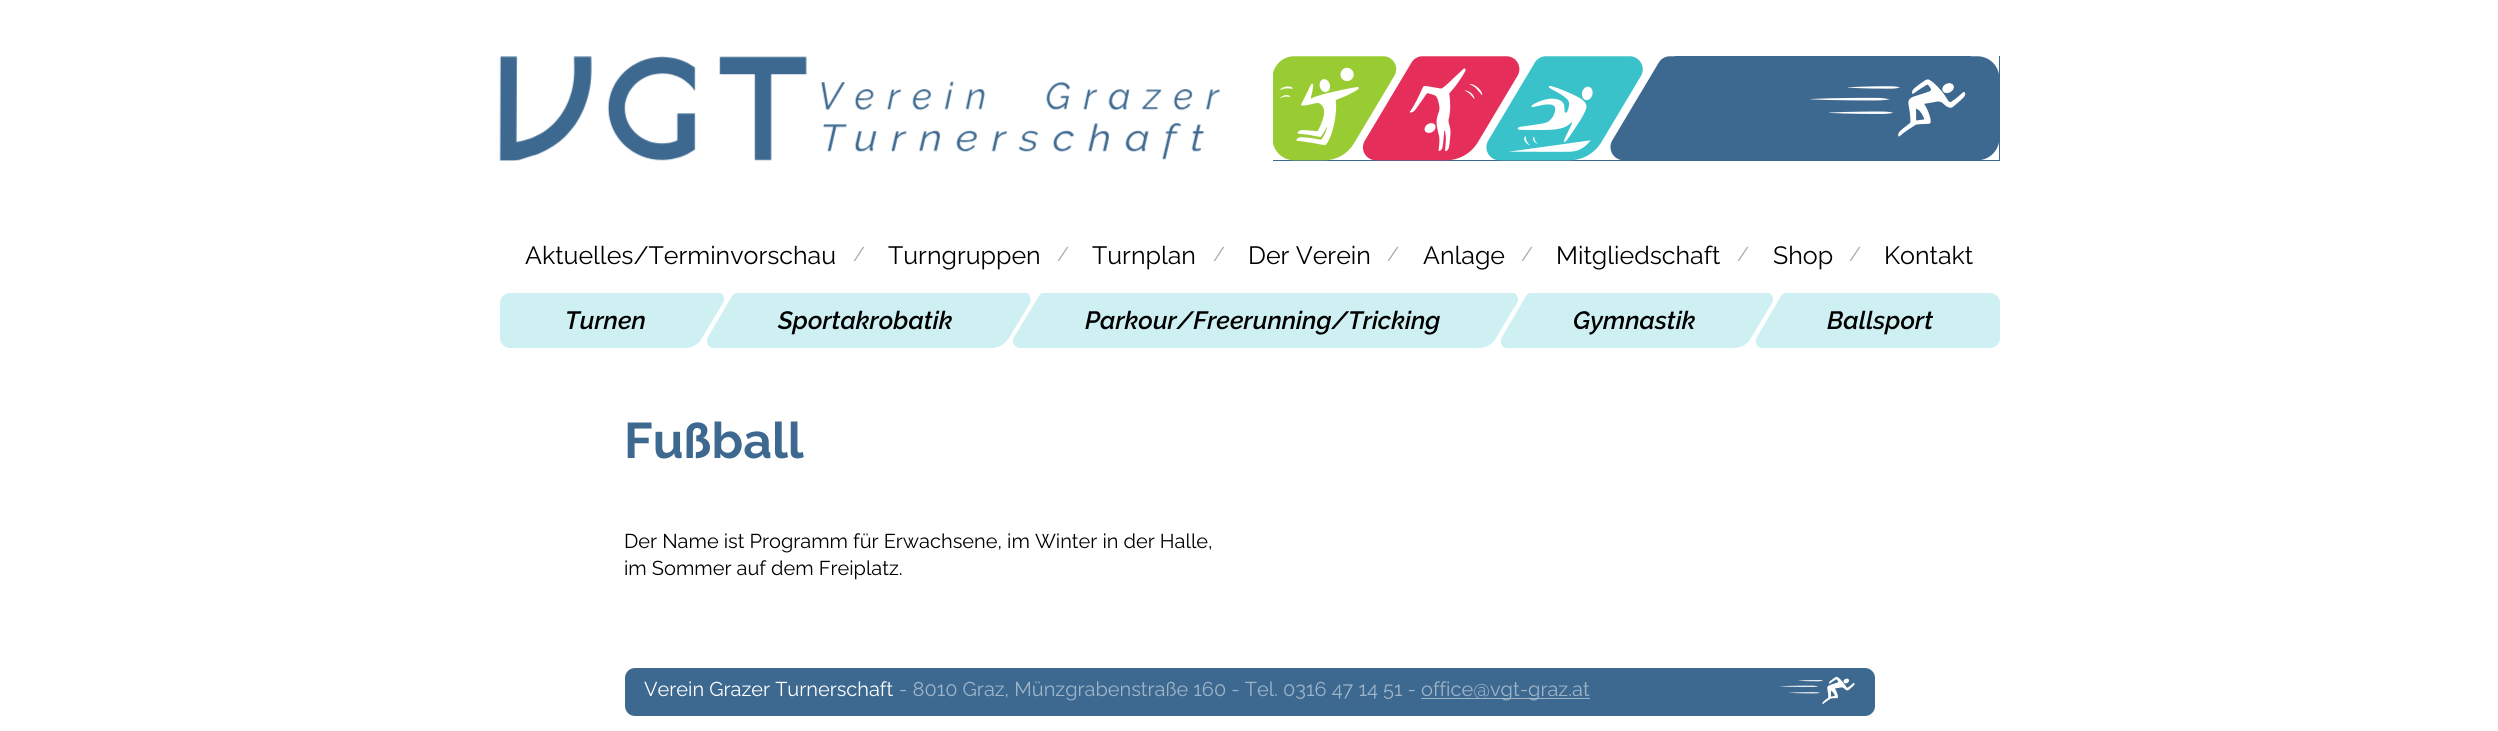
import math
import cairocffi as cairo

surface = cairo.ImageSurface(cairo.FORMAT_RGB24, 2498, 731)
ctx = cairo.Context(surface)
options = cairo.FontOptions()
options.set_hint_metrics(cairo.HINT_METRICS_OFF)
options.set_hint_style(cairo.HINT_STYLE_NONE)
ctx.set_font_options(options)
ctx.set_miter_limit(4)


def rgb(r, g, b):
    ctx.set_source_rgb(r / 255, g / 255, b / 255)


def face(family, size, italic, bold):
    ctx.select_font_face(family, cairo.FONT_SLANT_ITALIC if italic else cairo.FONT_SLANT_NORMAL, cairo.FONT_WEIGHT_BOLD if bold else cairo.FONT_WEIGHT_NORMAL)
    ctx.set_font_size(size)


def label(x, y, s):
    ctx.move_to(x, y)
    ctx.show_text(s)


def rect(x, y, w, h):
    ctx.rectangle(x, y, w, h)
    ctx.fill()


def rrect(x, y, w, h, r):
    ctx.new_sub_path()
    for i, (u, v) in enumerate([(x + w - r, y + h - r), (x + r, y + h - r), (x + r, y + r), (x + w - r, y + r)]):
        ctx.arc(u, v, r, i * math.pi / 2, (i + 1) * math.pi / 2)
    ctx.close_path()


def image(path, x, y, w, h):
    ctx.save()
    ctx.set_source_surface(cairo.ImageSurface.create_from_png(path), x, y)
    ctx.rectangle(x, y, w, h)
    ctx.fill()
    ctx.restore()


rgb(255, 255, 255)
ctx.paint()
image('image0.png', 499, 56, 721, 105)
rgb(61, 105, 144)
rect(1273, 56, 727, 105)
image('image1.png', 1273, 56, 402, 105)
image('image2.png', 1810, 56, 189, 104)
face('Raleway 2 Thin', 25, 0, 0)
rgb(0, 0, 0)
label(525, 264, 'Aktuelles/Terminvorschau')
face('Raleway 2 Thin', 20, 0, 0)
rgb(170, 170, 170)
label(853, 261, '/')
face('Raleway 2 Thin', 25, 0, 0)
rgb(0, 0, 0)
label(888, 264, 'Turngruppen')
face('Raleway 2 Thin', 20, 0, 0)
rgb(170, 170, 170)
label(1057, 261, '/')
face('Raleway 2 Thin', 25, 0, 0)
rgb(0, 0, 0)
label(1092, 264, 'Turnplan')
face('Raleway 2 Thin', 20, 0, 0)
rgb(170, 170, 170)
label(1213, 261, '/')
face('Raleway 2 Thin', 25, 0, 0)
rgb(0, 0, 0)
label(1248, 264, 'Der Verein')
face('Raleway 2 Thin', 20, 0, 0)
rgb(170, 170, 170)
label(1387, 261, '/')
face('Raleway 2 Thin', 25, 0, 0)
rgb(0, 0, 0)
label(1423, 264, 'Anlage')
face('Raleway 2 Thin', 20, 0, 0)
rgb(170, 170, 170)
label(1521, 261, '/')
face('Raleway 2 Thin', 25, 0, 0)
rgb(0, 0, 0)
label(1556, 264, 'Mitgliedschaft')
face('Raleway 2 Thin', 20, 0, 0)
rgb(170, 170, 170)
label(1737, 261, '/')
face('Raleway 2 Thin', 25, 0, 0)
rgb(0, 0, 0)
label(1773, 264, 'Shop')
face('Raleway 2 Thin', 20, 0, 0)
rgb(170, 170, 170)
label(1849, 261, '/')
face('Raleway 2 Thin', 25, 0, 0)
rgb(0, 0, 0)
label(1884, 264, 'Kontakt')
rgb(206, 240, 242)
rrect(500, 293, 1500, 55, 10)
ctx.fill()
face('Raleway Thin', 25, 1, 0)
rgb(0, 0, 0)
label(565, 329, 'Turnen')
ctx.save()
ctx.rectangle(688, 293, 50, 55)
ctx.clip()
rgb(255, 255, 255)
ctx.new_path()
ctx.move_to(708, 337)
ctx.line_to(732, 296)
ctx.curve_to(734, 294, 736, 292, 738, 292)
ctx.line_to(717, 292)
ctx.curve_to(723, 292, 726, 298, 723, 303)
ctx.line_to(702, 338)
ctx.curve_to(699, 344, 692, 348, 685, 348)
ctx.line_to(714, 348)
ctx.curve_to(708, 348, 705, 342, 708, 337)
ctx.close_path()
ctx.fill()
ctx.restore()
label(778, 329, 'Sportakrobatik')
ctx.save()
ctx.rectangle(994, 293, 50, 55)
ctx.clip()
rgb(255, 255, 255)
ctx.new_path()
ctx.move_to(1014, 337)
ctx.line_to(1039, 296)
ctx.curve_to(1040, 294, 1042, 292, 1045, 292)
ctx.line_to(1024, 292)
ctx.curve_to(1029, 292, 1032, 298, 1030, 303)
ctx.line_to(1009, 338)
ctx.curve_to(1005, 344, 999, 348, 992, 348)
ctx.line_to(1020, 348)
ctx.curve_to(1015, 348, 1011, 342, 1014, 337)
ctx.close_path()
ctx.fill()
ctx.restore()
label(1085, 329, 'Parkour/Freerunning/Tricking')
ctx.save()
ctx.rectangle(1481, 293, 50, 55)
ctx.clip()
rgb(255, 255, 255)
ctx.new_path()
ctx.move_to(1502, 337)
ctx.line_to(1526, 296)
ctx.curve_to(1527, 294, 1530, 292, 1532, 292)
ctx.line_to(1511, 292)
ctx.curve_to(1516, 292, 1520, 298, 1517, 303)
ctx.line_to(1496, 338)
ctx.curve_to(1493, 344, 1486, 348, 1479, 348)
ctx.line_to(1507, 348)
ctx.curve_to(1502, 348, 1499, 342, 1502, 337)
ctx.close_path()
ctx.fill()
ctx.restore()
label(1573, 329, 'Gymnastik')
ctx.save()
ctx.rectangle(1736, 293, 50, 55)
ctx.clip()
rgb(255, 255, 255)
ctx.new_path()
ctx.move_to(1757, 337)
ctx.line_to(1781, 296)
ctx.curve_to(1782, 294, 1785, 292, 1787, 292)
ctx.line_to(1766, 292)
ctx.curve_to(1771, 292, 1775, 298, 1772, 303)
ctx.line_to(1751, 338)
ctx.curve_to(1748, 344, 1741, 348, 1734, 348)
ctx.line_to(1762, 348)
ctx.curve_to(1757, 348, 1754, 342, 1757, 337)
ctx.close_path()
ctx.fill()
ctx.restore()
label(1827, 329, 'Ballsport')
face('Raleway Thin', 50, 0, 0)
rgb(61, 105, 144)
label(624, 458, 'Fußball')
face('Raleway 2 Thin', 20, 0, 0)
rgb(0, 0, 0)
label(624, 548, 'Der Name ist Programm für Erwachsene, im Winter in der Halle,')
label(624, 575, 'im Sommer auf dem Freiplatz.')
rgb(61, 105, 144)
rrect(625, 668, 1250, 48, 10)
ctx.fill()
rgb(255, 255, 255)
label(644, 696, 'Verein Grazer Turnerschaft')
rgb(158, 180, 200)
label(899, 696, '- 8010 Graz, Münzgrabenstraße 160 - Tel. 0316 47 14 51 -')
rect(1421, 698, 169, 1)
label(1421, 696, 'office@vgt-graz.at')
image('image3.png', 1780, 676, 75, 29)
surface.write_to_png('render.png')
